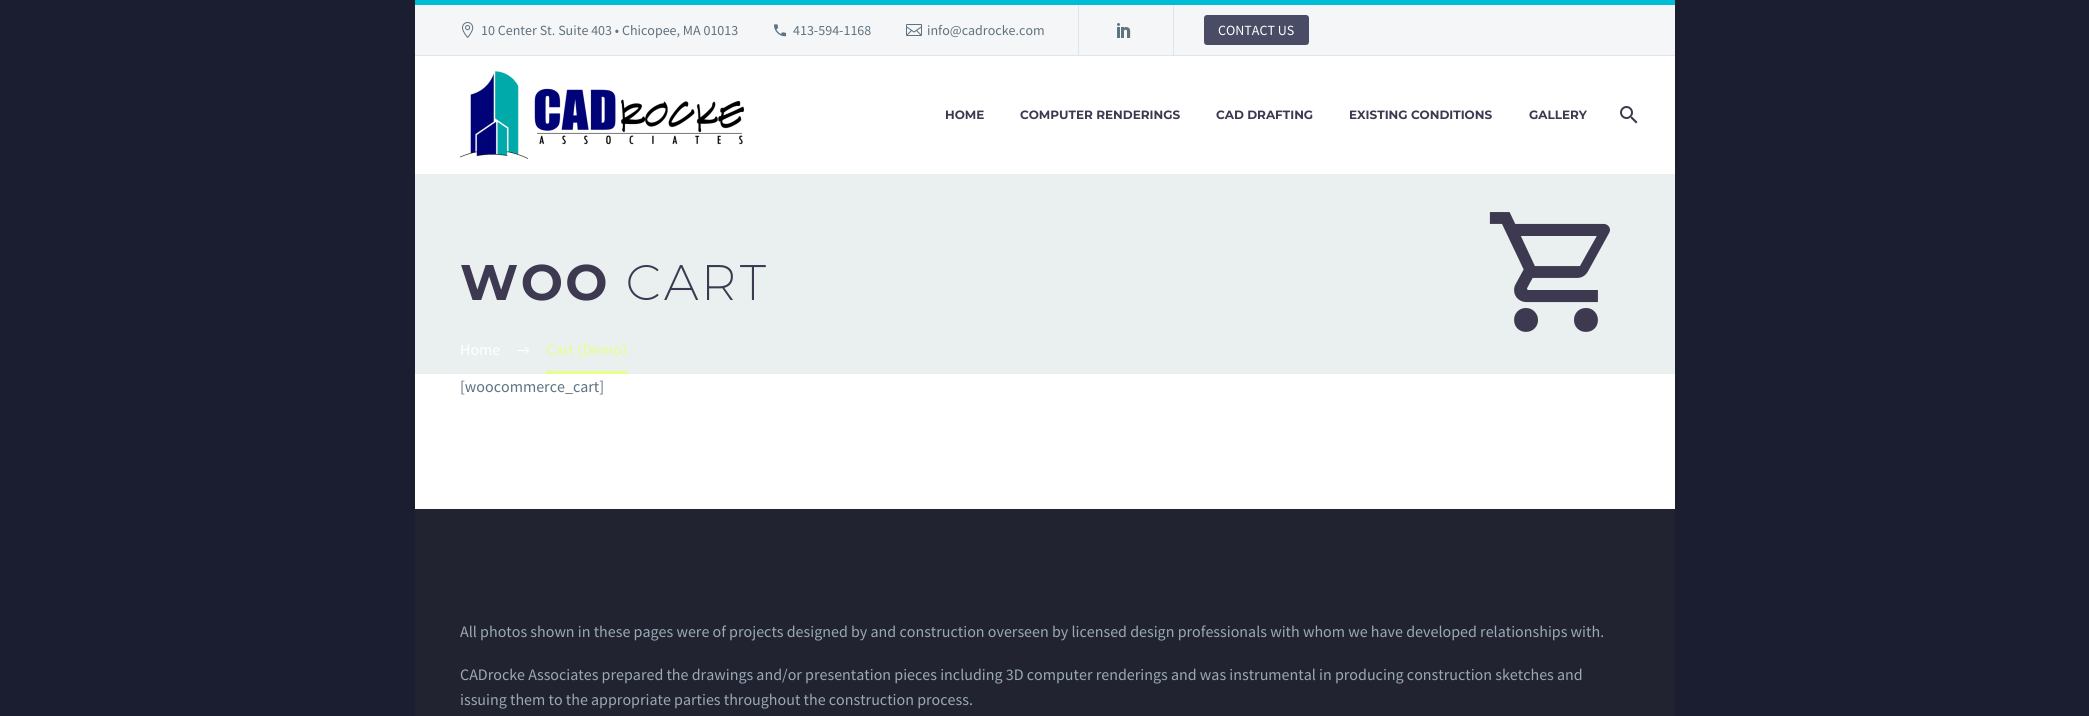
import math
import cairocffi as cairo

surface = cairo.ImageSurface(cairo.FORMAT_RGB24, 2089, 716)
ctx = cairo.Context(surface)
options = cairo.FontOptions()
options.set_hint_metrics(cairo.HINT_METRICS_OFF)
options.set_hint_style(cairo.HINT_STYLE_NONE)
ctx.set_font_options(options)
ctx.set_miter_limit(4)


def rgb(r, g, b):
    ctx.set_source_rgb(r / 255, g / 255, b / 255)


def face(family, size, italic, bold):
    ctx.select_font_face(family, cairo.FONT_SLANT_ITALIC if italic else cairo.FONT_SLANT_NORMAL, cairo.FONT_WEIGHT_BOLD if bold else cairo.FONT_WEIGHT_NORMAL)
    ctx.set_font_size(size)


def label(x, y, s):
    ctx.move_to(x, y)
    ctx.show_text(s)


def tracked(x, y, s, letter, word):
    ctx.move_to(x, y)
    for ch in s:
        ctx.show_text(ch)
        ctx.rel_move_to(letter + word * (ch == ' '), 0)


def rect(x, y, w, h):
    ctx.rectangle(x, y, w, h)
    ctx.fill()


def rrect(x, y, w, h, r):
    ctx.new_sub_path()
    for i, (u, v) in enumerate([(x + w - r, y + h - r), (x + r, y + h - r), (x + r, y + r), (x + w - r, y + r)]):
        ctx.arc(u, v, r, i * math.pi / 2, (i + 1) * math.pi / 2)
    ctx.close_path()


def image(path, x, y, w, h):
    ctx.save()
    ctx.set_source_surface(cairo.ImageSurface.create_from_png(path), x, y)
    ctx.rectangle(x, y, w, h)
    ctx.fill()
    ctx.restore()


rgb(27, 30, 48)
ctx.paint()
rgb(244, 246, 247)
rect(415, 5, 1260, 50)
rgb(0, 188, 212)
rect(415, 0, 1260, 5)
rgb(223, 229, 232)
rect(415, 55, 1260, 1)
image('image0.png', 462, 22, 12, 16)
face('Source Sans Pro', 14, 0, 0)
rgb(95, 114, 127)
label(481, 35, '10 Center St. Suite 403 • Chicopee, MA 01013')
image('image1.png', 774, 24, 12, 13)
label(793, 35, '413-594-1168')
image('image2.png', 906, 24, 16, 12)
label(927, 35, 'info@cadrocke.com')
rgb(223, 229, 232)
rect(1078, 5, 1, 50)
image('image3.png', 1117, 23, 14, 15)
rect(1173, 5, 1, 50)
rgb(73, 76, 100)
rrect(1204, 15, 105, 30, 3)
ctx.fill()
rgb(255, 255, 255)
label(1218, 35, 'CONTACT US')
rect(415, 56, 1260, 118)
image('image4.png', 460, 71, 284, 88)
face('Montserrat', 12, 0, 1)
rgb(60, 57, 80)
label(945, 119, 'HOME')
label(1020, 119, 'COMPUTER RENDERINGS')
label(1216, 119, 'CAD DRAFTING')
label(1349, 119, 'EXISTING CONDITIONS')
label(1529, 119, 'GALLERY')
image('image5.png', 1620, 106, 18, 18)
rgb(255, 255, 255)
rect(415, 374, 1260, 135)
rgb(233, 240, 239)
rect(415, 174, 1260, 200)
face('Montserrat', 50, 0, 1)
rgb(60, 57, 80)
tracked(460, 300, 'WOO', 2.5, 0)
face('Montserrat ExtraLight', 50, 0, 0)
tracked(626, 300, 'CART', 2.5, 0)
face('Source Sans Pro', 16, 0, 0)
rgb(255, 255, 255)
label(460, 355, 'Home')
image('image6.png', 517, 347, 12, 7)
rgb(231, 255, 137)
label(546, 355, 'Cart (Demo)')
rect(546, 371, 81, 3)
image('image7.png', 1489, 212, 67, 120)
image('image8.png', 1556, 223, 54, 109)
rgb(95, 114, 127)
label(460, 392, '[woocommerce_cart]')
rgb(33, 35, 49)
rect(415, 509, 1260, 207)
rgb(153, 169, 181)
label(460, 637, 'All photos shown in these pages were of projects designed by and construction overseen by licensed design professionals with whom we have developed relationships with.')
label(460, 680, 'CADrocke Associates prepared the drawings and/or presentation pieces including 3D computer renderings and was instrumental in producing construction sketches and')
label(460, 705, 'issuing them to the appropriate parties throughout the construction process.')
surface.write_to_png('render.png')
